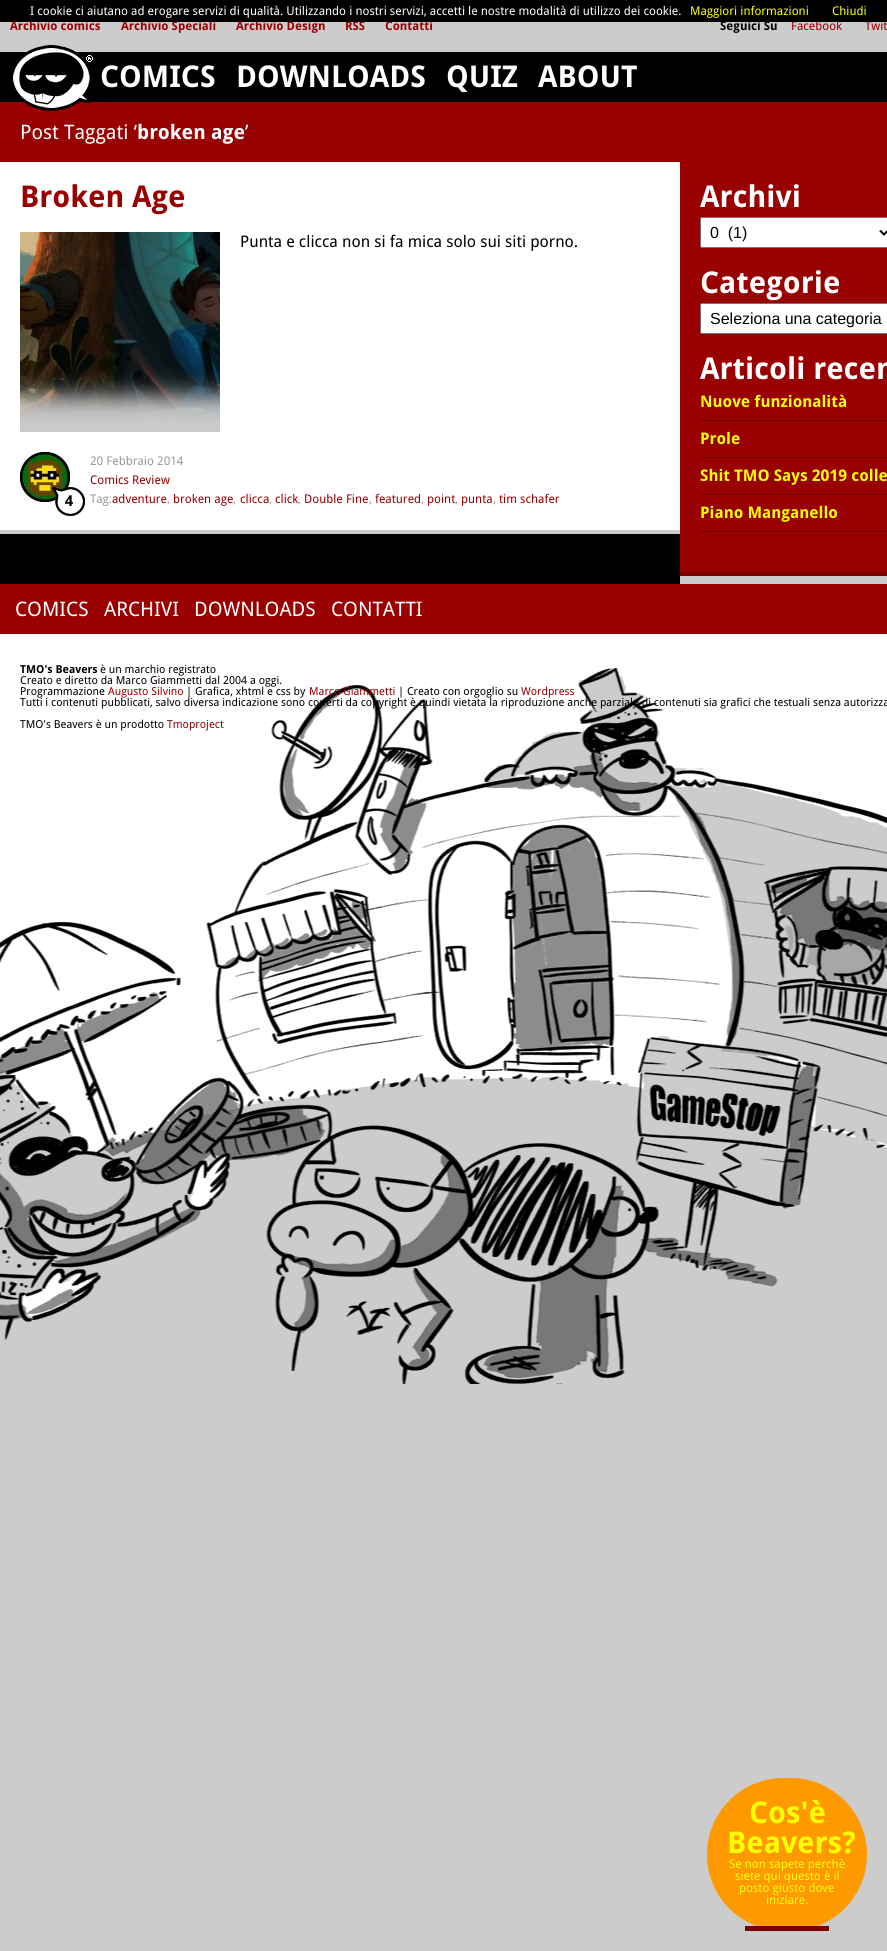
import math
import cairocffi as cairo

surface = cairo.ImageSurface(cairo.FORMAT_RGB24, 887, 1951)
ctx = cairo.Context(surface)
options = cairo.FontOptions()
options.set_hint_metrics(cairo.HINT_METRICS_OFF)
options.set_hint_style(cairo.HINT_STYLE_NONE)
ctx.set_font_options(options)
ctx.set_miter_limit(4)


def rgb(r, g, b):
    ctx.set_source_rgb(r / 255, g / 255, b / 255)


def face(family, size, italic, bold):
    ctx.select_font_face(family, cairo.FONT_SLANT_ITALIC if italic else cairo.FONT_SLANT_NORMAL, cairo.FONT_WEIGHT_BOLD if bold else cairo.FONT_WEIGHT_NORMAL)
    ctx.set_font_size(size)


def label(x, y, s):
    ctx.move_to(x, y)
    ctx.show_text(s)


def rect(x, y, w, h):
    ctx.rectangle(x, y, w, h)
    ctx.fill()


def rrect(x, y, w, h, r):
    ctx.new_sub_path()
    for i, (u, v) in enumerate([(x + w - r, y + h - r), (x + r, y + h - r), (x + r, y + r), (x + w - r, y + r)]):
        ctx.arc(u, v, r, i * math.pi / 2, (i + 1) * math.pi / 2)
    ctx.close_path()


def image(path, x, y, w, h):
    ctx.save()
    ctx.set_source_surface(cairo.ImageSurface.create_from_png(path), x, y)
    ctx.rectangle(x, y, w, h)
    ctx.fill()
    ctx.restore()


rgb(204, 204, 204)
ctx.paint()
face('Droid Sans', 12, 0, 1)
rgb(153, 0, 0)
label(10, 30, 'Archivio comics')
label(121, 30, 'Archivio Speciali')
label(236, 30, 'Archivio Design')
label(345, 30, 'RSS')
label(385, 30, 'Contatti')
face('Droid Sans', 12, 0, 0)
label(791, 30, 'Facebook')
label(865, 30, 'Twit')
rgb(0, 0, 0)
rect(0, 0, 887, 22)
rgb(255, 255, 255)
label(30, 15, 'I cookie ci aiutano ad erogare servizi di qualità. Utilizzando i nostri servizi, accetti le nostre modalità di utilizzo dei cookie.')
rgb(255, 255, 0)
label(690, 15, 'Maggiori informazioni')
label(832, 15, 'Chiudi')
face('Droid Sans', 12, 0, 1)
rgb(0, 0, 0)
label(720, 30, 'Seguici Su')
rect(0, 52, 887, 50)
rgb(153, 0, 0)
rect(0, 102, 887, 60)
image('image0.png', 13, 45, 80, 66)
face('Droid Sans', 30, 0, 1)
rgb(255, 255, 255)
label(100, 87, 'COMICS')
label(236, 87, 'DOWNLOADS')
label(446, 87, 'QUIZ')
label(538, 87, 'ABOUT')
face('Droid Sans', 20, 0, 0)
label(20, 139, 'Post Taggati ‘')
face('Droid Sans', 20, 0, 1)
label(137, 139, 'broken age')
face('Droid Sans', 20, 0, 0)
label(245, 139, '’')
rect(0, 162, 680, 368)
face('Droid Sans', 30, 0, 1)
rgb(153, 0, 0)
label(20, 207, 'Broken Age')
image('image1.png', 20, 232, 200, 200)
face('Droid Sans', 16, 0, 0)
rgb(0, 0, 0)
label(240, 247, 'Punta e clicca non si fa mica solo sui siti porno.')
image('image2.png', 20, 452, 50, 50)
face('Droid Sans', 12, 0, 0)
rgb(153, 153, 153)
label(90, 465, '20 Febbraio 2014')
rgb(153, 0, 0)
label(90, 484, 'Comics Review')
image('image3.png', 52, 487, 33, 29)
face('Droid Sans', 15, 0, 1)
rgb(0, 0, 0)
label(65, 506, '4')
face('Droid Sans', 12, 0, 0)
rgb(153, 153, 153)
label(90, 503, 'Tag:')
rgb(153, 0, 0)
label(112, 503, 'adventure')
rgb(153, 153, 153)
label(167, 503, ',')
rgb(153, 0, 0)
label(173, 503, 'broken age')
rgb(153, 153, 153)
label(233, 503, ',')
rgb(153, 0, 0)
label(240, 503, 'clicca')
rgb(153, 153, 153)
label(269, 503, ',')
rgb(153, 0, 0)
label(275, 503, 'click')
rgb(153, 153, 153)
label(298, 503, ',')
rgb(153, 0, 0)
label(304, 503, 'Double Fine')
rgb(153, 153, 153)
label(369, 503, ',')
rgb(153, 0, 0)
label(375, 503, 'featured')
rgb(153, 153, 153)
label(421, 503, ',')
rgb(153, 0, 0)
label(427, 503, 'point')
rgb(153, 153, 153)
label(455, 503, ',')
rgb(153, 0, 0)
label(461, 503, 'punta')
rgb(153, 153, 153)
label(493, 503, ',')
rgb(153, 0, 0)
label(499, 503, 'tim schafer')
rgb(0, 0, 0)
rect(0, 534, 680, 50)
rgb(153, 0, 0)
rect(680, 162, 207, 410)
rgb(122, 0, 0)
rect(680, 572, 207, 4)
face('Droid Sans', 30, 0, 1)
rgb(255, 255, 255)
label(700, 207, 'Archivi')
rrect(700.5, 217.5, 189, 30, 1.5)
ctx.fill_preserve()
rgb(118, 118, 118)
ctx.set_line_width(1)
ctx.stroke()
ctx.new_path()
ctx.move_to(880, 230.5)
ctx.line_to(884, 234.5)
ctx.line_to(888, 230.5)
rgb(0, 0, 0)
ctx.set_line_width(2)
ctx.stroke()
face('Liberation Sans', 16, 0, 0)
label(710, 238, '0  (1)')
face('Droid Sans', 30, 0, 1)
rgb(255, 255, 255)
label(700, 293, 'Categorie')
rrect(700.5, 303.5, 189, 30, 1.5)
ctx.fill_preserve()
rgb(118, 118, 118)
ctx.set_line_width(1)
ctx.stroke()
face('Liberation Sans', 16, 0, 0)
rgb(0, 0, 0)
label(710, 324, 'Seleziona una categoria')
face('Droid Sans', 30, 0, 1)
rgb(255, 255, 255)
label(700, 379, 'Articoli recen')
rgb(106, 0, 0)
rect(700, 420, 187, 1)
face('Droid Sans', 16, 0, 1)
rgb(255, 255, 0)
label(700, 407, 'Nuove funzionalità')
rgb(106, 0, 0)
rect(700, 457, 187, 1)
rgb(255, 255, 0)
label(700, 444, 'Prole')
rgb(106, 0, 0)
rect(700, 494, 187, 1)
rgb(255, 255, 0)
label(700, 481, 'Shit TMO Says 2019 colle')
rgb(106, 0, 0)
rect(700, 531, 187, 1)
rgb(255, 255, 0)
label(700, 518, 'Piano Manganello')
image('image4.png', 0, 634, 887, 750)
rgb(153, 0, 0)
rect(0, 584, 887, 50)
face('Droid Sans', 20, 0, 0)
rgb(255, 255, 255)
label(15, 616, 'COMICS')
label(104, 616, 'ARCHIVI')
label(194, 616, 'DOWNLOADS')
label(331, 616, 'CONTATTI')
face('Droid Sans', 11, 0, 1)
rgb(0, 0, 0)
label(20, 673, 'TMO\'s Beavers')
face('Droid Sans', 11, 0, 0)
label(100, 673, 'è un marchio registrato')
label(20, 684, 'Creato e diretto da Marco Giammetti dal 2004 a oggi.')
label(20, 695, 'Programmazione')
rgb(153, 0, 0)
label(108, 695, 'Augusto Silvino')
rgb(0, 0, 0)
label(186, 695, '| Grafica, xhtml e css by')
rgb(153, 0, 0)
label(309, 695, 'Marco Giammetti')
rgb(0, 0, 0)
label(398, 695, '| Creato con orgoglio su')
rgb(153, 0, 0)
label(521, 695, 'Wordpress')
rgb(0, 0, 0)
label(20, 706, 'Tutti i contenuti pubblicati, salvo diversa indicazione sono coperti da copyright è quindi vietata la riproduzione anche parziale di contenuti sia grafici che testuali senza autorizza')
label(20, 728, 'TMO\'s Beavers è un prodotto')
rgb(153, 0, 0)
label(167, 728, 'Tmoproject')
rgb(255, 153, 0)
rrect(707, 1778, 160, 153, 76.5)
ctx.fill()
rgb(122, 0, 0)
rect(745, 1926, 84, 5)
face('Droid Sans', 30, 0, 1)
rgb(255, 255, 0)
label(749, 1823, 'Cos\'è')
label(727, 1853, 'Beavers?')
face('Droid Sans', 12, 0, 0)
label(729, 1868, 'Se non sapete perchè')
label(735, 1880, 'siete qui questo è il')
label(739, 1892, 'posto giusto dove')
label(766, 1904, 'iniziare.')
surface.write_to_png('render.png')
